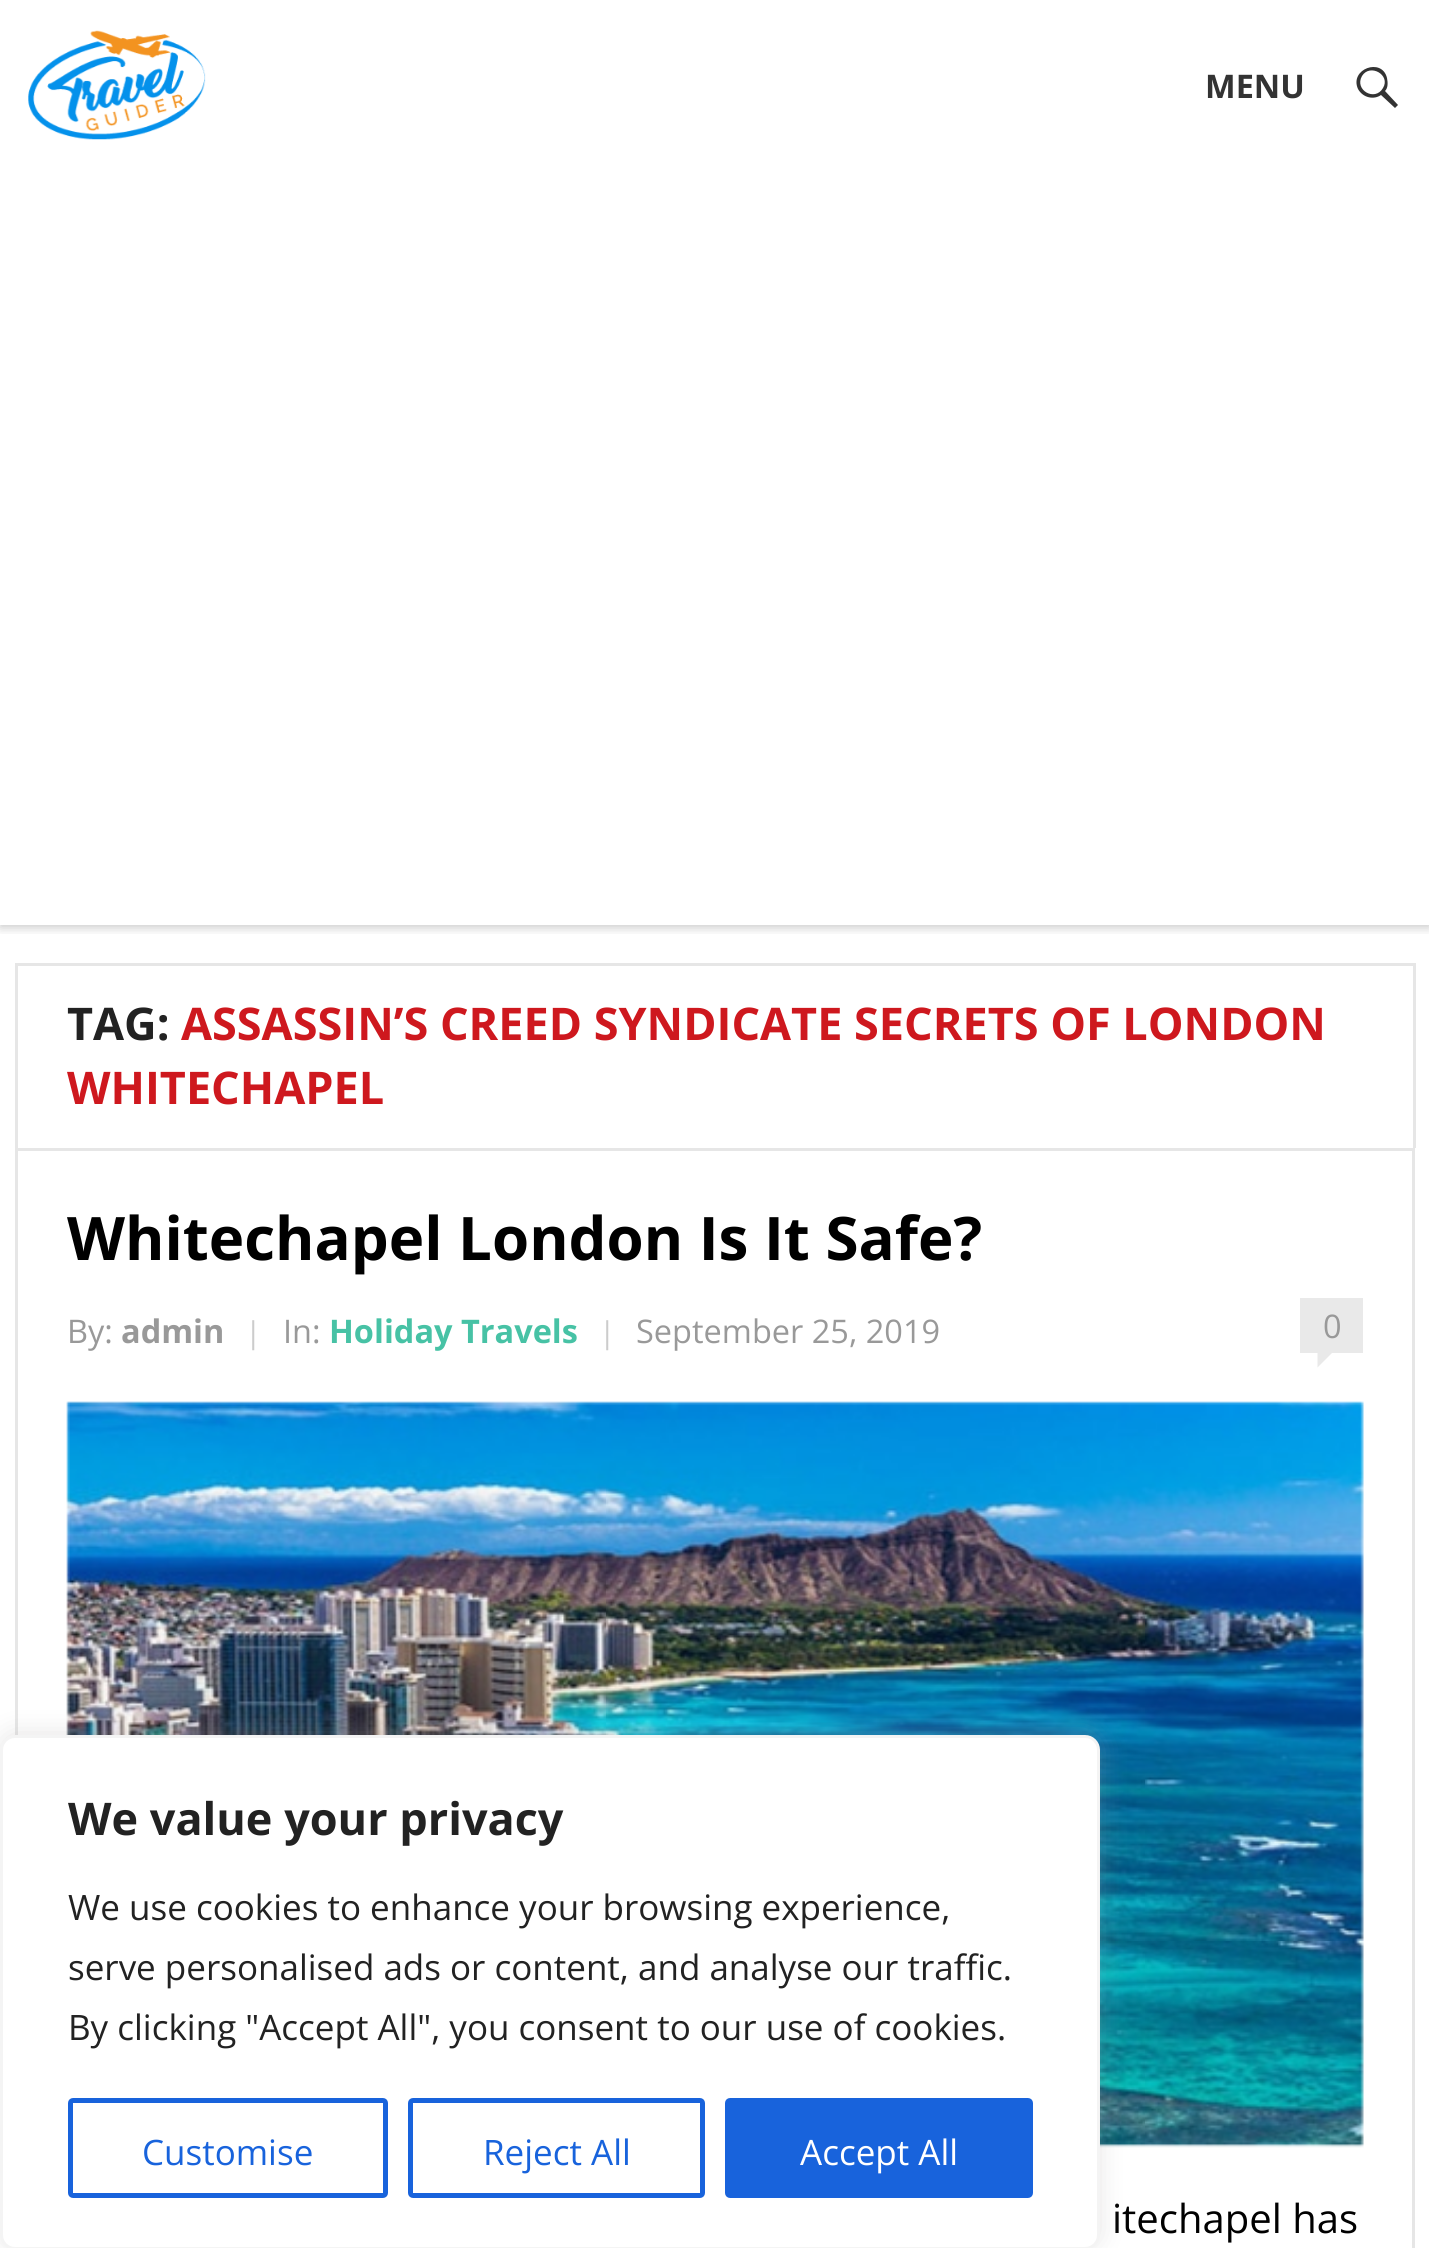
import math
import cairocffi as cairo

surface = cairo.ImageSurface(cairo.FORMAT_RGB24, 1429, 2248)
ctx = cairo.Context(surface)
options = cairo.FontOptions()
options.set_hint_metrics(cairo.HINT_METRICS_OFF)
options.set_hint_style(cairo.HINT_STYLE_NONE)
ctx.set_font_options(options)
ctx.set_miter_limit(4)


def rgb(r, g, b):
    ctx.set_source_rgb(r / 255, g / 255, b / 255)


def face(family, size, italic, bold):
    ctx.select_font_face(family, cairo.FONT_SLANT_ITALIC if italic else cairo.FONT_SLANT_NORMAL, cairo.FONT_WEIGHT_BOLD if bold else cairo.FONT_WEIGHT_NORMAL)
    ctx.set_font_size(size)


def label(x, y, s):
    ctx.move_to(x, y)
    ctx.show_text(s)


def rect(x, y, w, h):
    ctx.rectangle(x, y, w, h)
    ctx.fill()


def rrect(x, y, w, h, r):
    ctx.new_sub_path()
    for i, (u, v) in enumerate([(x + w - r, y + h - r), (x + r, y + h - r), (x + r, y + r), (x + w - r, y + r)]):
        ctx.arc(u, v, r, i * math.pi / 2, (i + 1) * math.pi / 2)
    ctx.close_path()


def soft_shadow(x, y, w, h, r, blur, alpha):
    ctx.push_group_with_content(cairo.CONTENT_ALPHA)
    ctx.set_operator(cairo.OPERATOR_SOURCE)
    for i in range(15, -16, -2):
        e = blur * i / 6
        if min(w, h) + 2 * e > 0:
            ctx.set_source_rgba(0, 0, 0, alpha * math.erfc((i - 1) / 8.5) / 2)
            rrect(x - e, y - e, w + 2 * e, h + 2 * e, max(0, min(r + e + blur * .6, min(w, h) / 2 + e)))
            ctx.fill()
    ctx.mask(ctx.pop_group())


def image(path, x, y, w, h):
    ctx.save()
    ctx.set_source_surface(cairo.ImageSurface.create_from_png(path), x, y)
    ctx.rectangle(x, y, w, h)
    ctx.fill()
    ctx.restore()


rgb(255, 255, 255)
ctx.paint()
ctx.save()
ctx.rectangle(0, 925, 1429, 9)
ctx.clip()
rgb(0, 0, 0)
soft_shadow(0, 3, 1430, 925, 0, 5, 0.2)
ctx.restore()
image('image0.png', 28, 30, 178, 110)
face('Open Sans', 32.5, 0, 1)
rgb(51, 51, 51)
label(1205, 98, 'MENU')
ctx.new_path()
ctx.move_to(1398, 105)
ctx.line_to(1395, 108)
ctx.line_to(1381, 95)
ctx.curve_to(1374, 100, 1363, 98, 1358, 89)
ctx.curve_to(1349, 69, 1382, 57, 1387, 78)
ctx.curve_to(1388, 83, 1388, 88, 1385, 91)
ctx.close_path()
ctx.move_to(1362, 76)
ctx.curve_to(1354, 90, 1375, 102, 1383, 88)
ctx.curve_to(1391, 75, 1370, 63, 1362, 76)
ctx.close_path()
ctx.fill()
rgb(230, 230, 230)
rect(15, 963, 1400, 3)
rect(1413, 963, 3, 185)
rect(15, 963, 3, 185)
face('Open Sans', 45, 0, 1)
rgb(34, 34, 34)
label(67, 1040, 'TAG:')
rgb(206, 24, 30)
label(181, 1040, 'ASSASSIN’S CREED SYNDICATE SECRETS OF LONDON')
label(67, 1104, 'WHITECHAPEL')
ctx.rectangle(16.5, 1149.5, 1397, 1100)
rgb(230, 230, 230)
ctx.set_line_width(3)
ctx.stroke()
face('Open Sans', 60, 0, 1)
rgb(0, 0, 0)
label(67, 1260, 'Whitechapel London Is It Safe?')
face('Open Sans', 32.5, 0, 0)
rgb(153, 153, 153)
label(67, 1343, 'By:')
face('Open Sans', 32.5, 0, 1)
label(121, 1343, 'admin')
face('Open Sans', 30, 0, 0)
rgb(204, 204, 204)
label(245, 1343, '|')
face('Open Sans', 32.5, 0, 0)
rgb(153, 153, 153)
label(283, 1343, 'In:')
face('Open Sans', 32.5, 0, 1)
rgb(71, 194, 165)
label(329, 1343, 'Holiday Travels')
face('Open Sans', 30, 0, 0)
rgb(204, 204, 204)
label(599, 1343, '|')
face('Open Sans', 32.5, 0, 0)
rgb(153, 153, 153)
label(636, 1343, 'September 25, 2019')
rgb(233, 233, 233)
rect(1300, 1298, 63, 55)
rgb(153, 153, 153)
label(1323, 1338, '0')
rgb(233, 233, 233)
ctx.new_path()
ctx.move_to(1317.5, 1352.5)
ctx.line_to(1332.5, 1352.5)
ctx.line_to(1317.5, 1367.5)
ctx.close_path()
ctx.fill()
image('image1.png', 66, 1401, 1298, 747)
face('Open Sans', 40, 0, 0)
rgb(0, 0, 0)
label(1112, 2233, 'itechapel has')
rgb(172, 171, 171)
soft_shadow(0, 1733, 1100, 515, 15, 12.5, 0.3)
rgb(255, 255, 255)
rrect(1.5, 1736.5, 1097, 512, 13.5)
ctx.fill_preserve()
rgb(244, 244, 244)
ctx.stroke()
face('Open Sans', 45, 0, 1)
rgb(34, 34, 34)
label(68, 1835, 'We value your privacy')
face('Open Sans', 35, 0, 0)
label(68, 1920, 'We use cookies to enhance your browsing experience,')
label(68, 1980, 'serve personalised ads or content, and analyse our traffic.')
label(68, 2040, 'By clicking "Accept All", you consent to our use of cookies.')
rrect(70.5, 2100.5, 315, 95, 2.5)
rgb(24, 99, 220)
ctx.set_line_width(5)
ctx.stroke()
label(142, 2165, 'Customise')
rrect(410.5, 2100.5, 292, 95, 2.5)
ctx.stroke()
label(483, 2165, 'Reject All')
rrect(727.5, 2100.5, 303, 95, 2.5)
ctx.fill_preserve()
ctx.stroke()
rgb(255, 255, 255)
label(800, 2165, 'Accept All')
surface.write_to_png('render.png')
